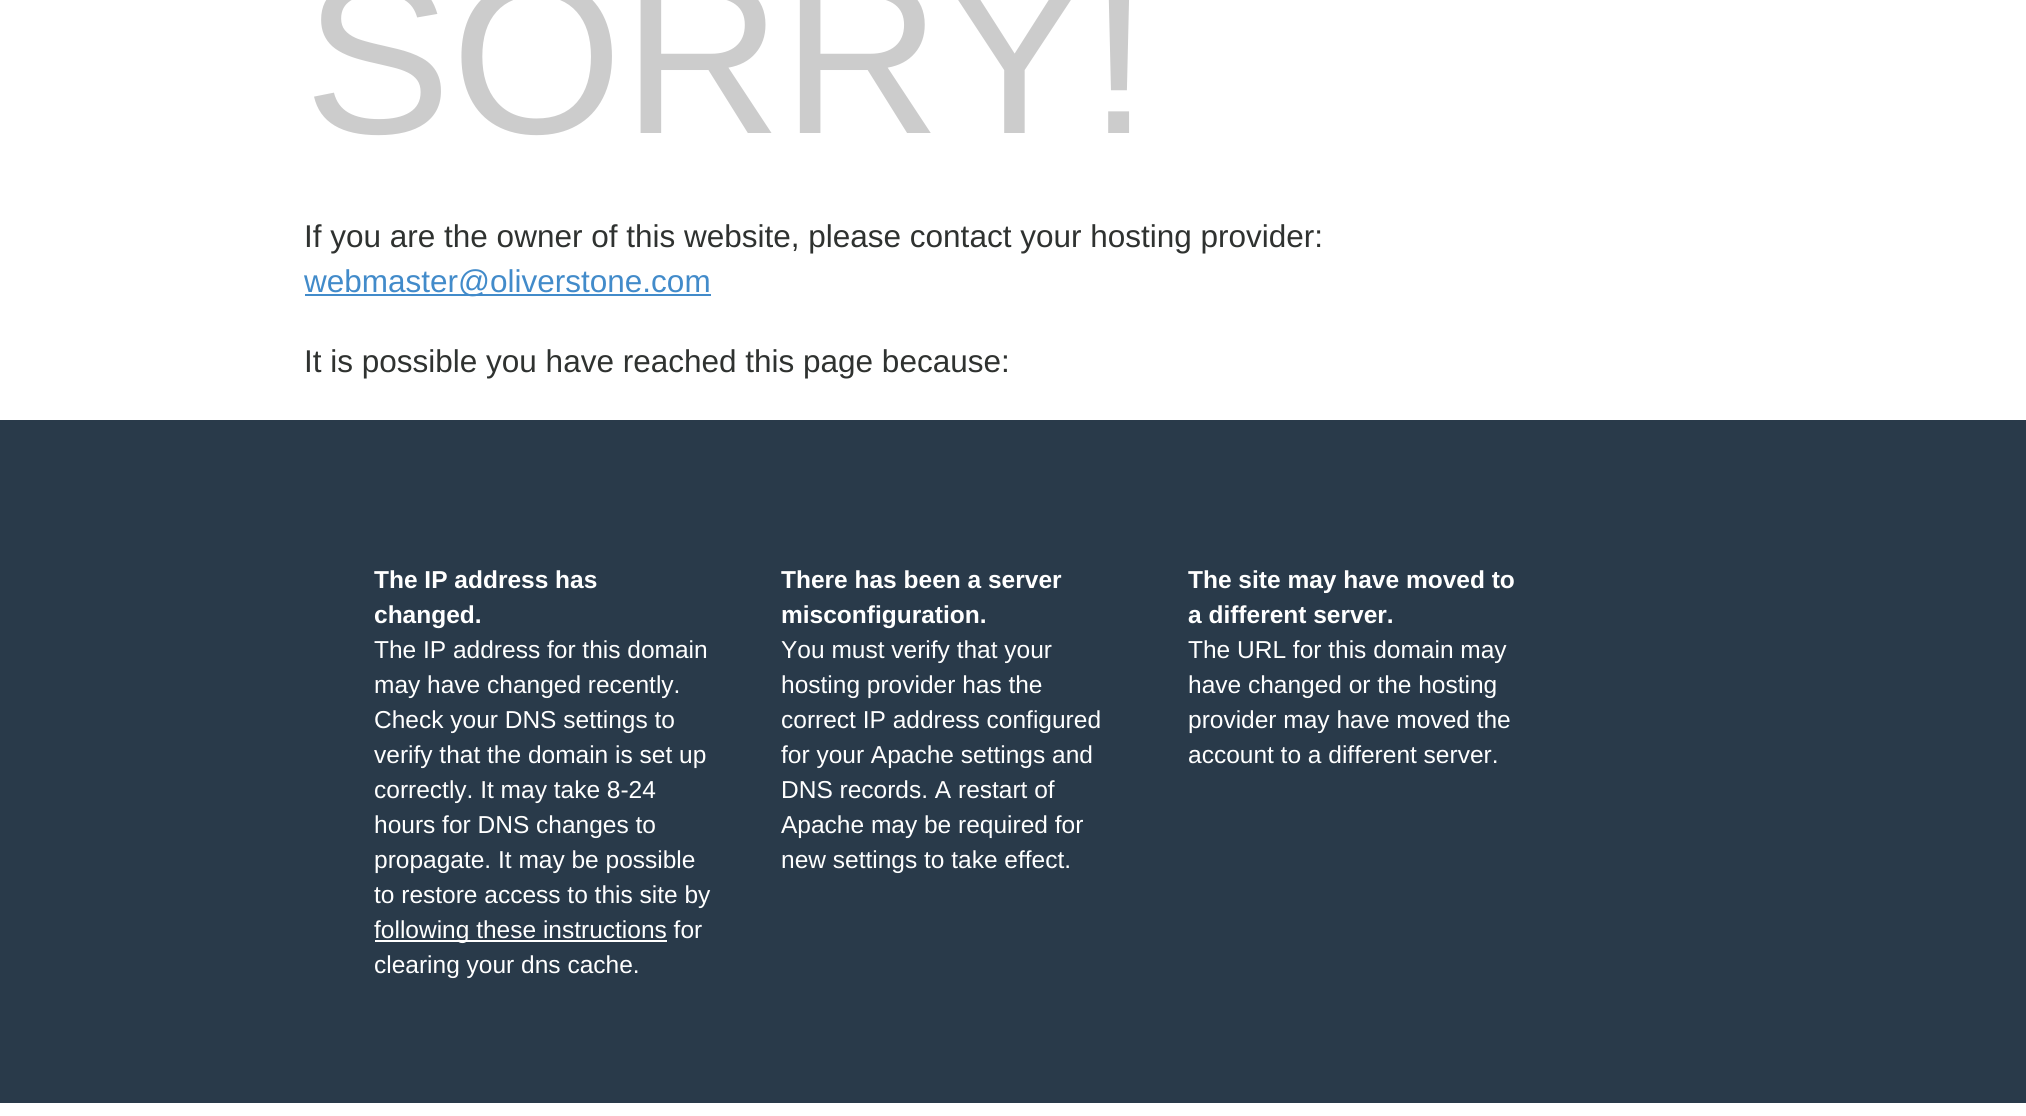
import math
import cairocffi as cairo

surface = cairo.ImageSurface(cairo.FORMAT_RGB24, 2026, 1116)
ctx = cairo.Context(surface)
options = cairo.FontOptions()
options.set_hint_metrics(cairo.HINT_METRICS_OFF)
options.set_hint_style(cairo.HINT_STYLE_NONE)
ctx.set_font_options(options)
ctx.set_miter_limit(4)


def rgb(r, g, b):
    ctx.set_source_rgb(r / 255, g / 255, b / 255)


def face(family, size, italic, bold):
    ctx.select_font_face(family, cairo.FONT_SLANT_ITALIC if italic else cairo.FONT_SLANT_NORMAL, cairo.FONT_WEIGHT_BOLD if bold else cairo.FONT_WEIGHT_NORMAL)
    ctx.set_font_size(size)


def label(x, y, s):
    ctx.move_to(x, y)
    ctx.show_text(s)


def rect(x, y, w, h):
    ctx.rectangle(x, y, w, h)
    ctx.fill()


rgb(255, 255, 255)
ctx.paint()
face('Liberation Sans', 220.5, 0, 0)
rgb(204, 204, 204)
label(304, 133, 'SORRY!')
face('Liberation Sans', 31.5, 0, 0)
rgb(47, 50, 48)
label(304, 247, 'If you are the owner of this website, please contact your hosting provider:')
rgb(66, 139, 202)
rect(305, 294, 406, 2)
label(304, 292, 'webmaster@oliverstone.com')
rgb(47, 50, 48)
label(304, 372, 'It is possible you have reached this page because:')
rgb(41, 58, 74)
rect(0, 420, 2026, 683)
face('Liberation Sans', 24.5, 0, 1)
rgb(255, 255, 255)
label(374, 588, 'The IP address has')
label(374, 623, 'changed.')
face('Liberation Sans', 24.5, 0, 0)
label(374, 658, 'The IP address for this domain')
label(374, 693, 'may have changed recently.')
label(374, 728, 'Check your DNS settings to')
label(374, 763, 'verify that the domain is set up')
label(374, 798, 'correctly. It may take 8-24')
label(374, 833, 'hours for DNS changes to')
label(374, 868, 'propagate. It may be possible')
label(374, 903, 'to restore access to this site by')
rect(375, 940, 292, 2)
label(374, 938, 'following these instructions for')
label(374, 973, 'clearing your dns cache.')
face('Liberation Sans', 24.5, 0, 1)
label(781, 588, 'There has been a server')
label(781, 623, 'misconfiguration.')
face('Liberation Sans', 24.5, 0, 0)
label(781, 658, 'You must verify that your')
label(781, 693, 'hosting provider has the')
label(781, 728, 'correct IP address configured')
label(781, 763, 'for your Apache settings and')
label(781, 798, 'DNS records. A restart of')
label(781, 833, 'Apache may be required for')
label(781, 868, 'new settings to take effect.')
face('Liberation Sans', 24.5, 0, 1)
label(1188, 588, 'The site may have moved to')
label(1188, 623, 'a different server.')
face('Liberation Sans', 24.5, 0, 0)
label(1188, 658, 'The URL for this domain may')
label(1188, 693, 'have changed or the hosting')
label(1188, 728, 'provider may have moved the')
label(1188, 763, 'account to a different server.')
surface.write_to_png('render.png')
